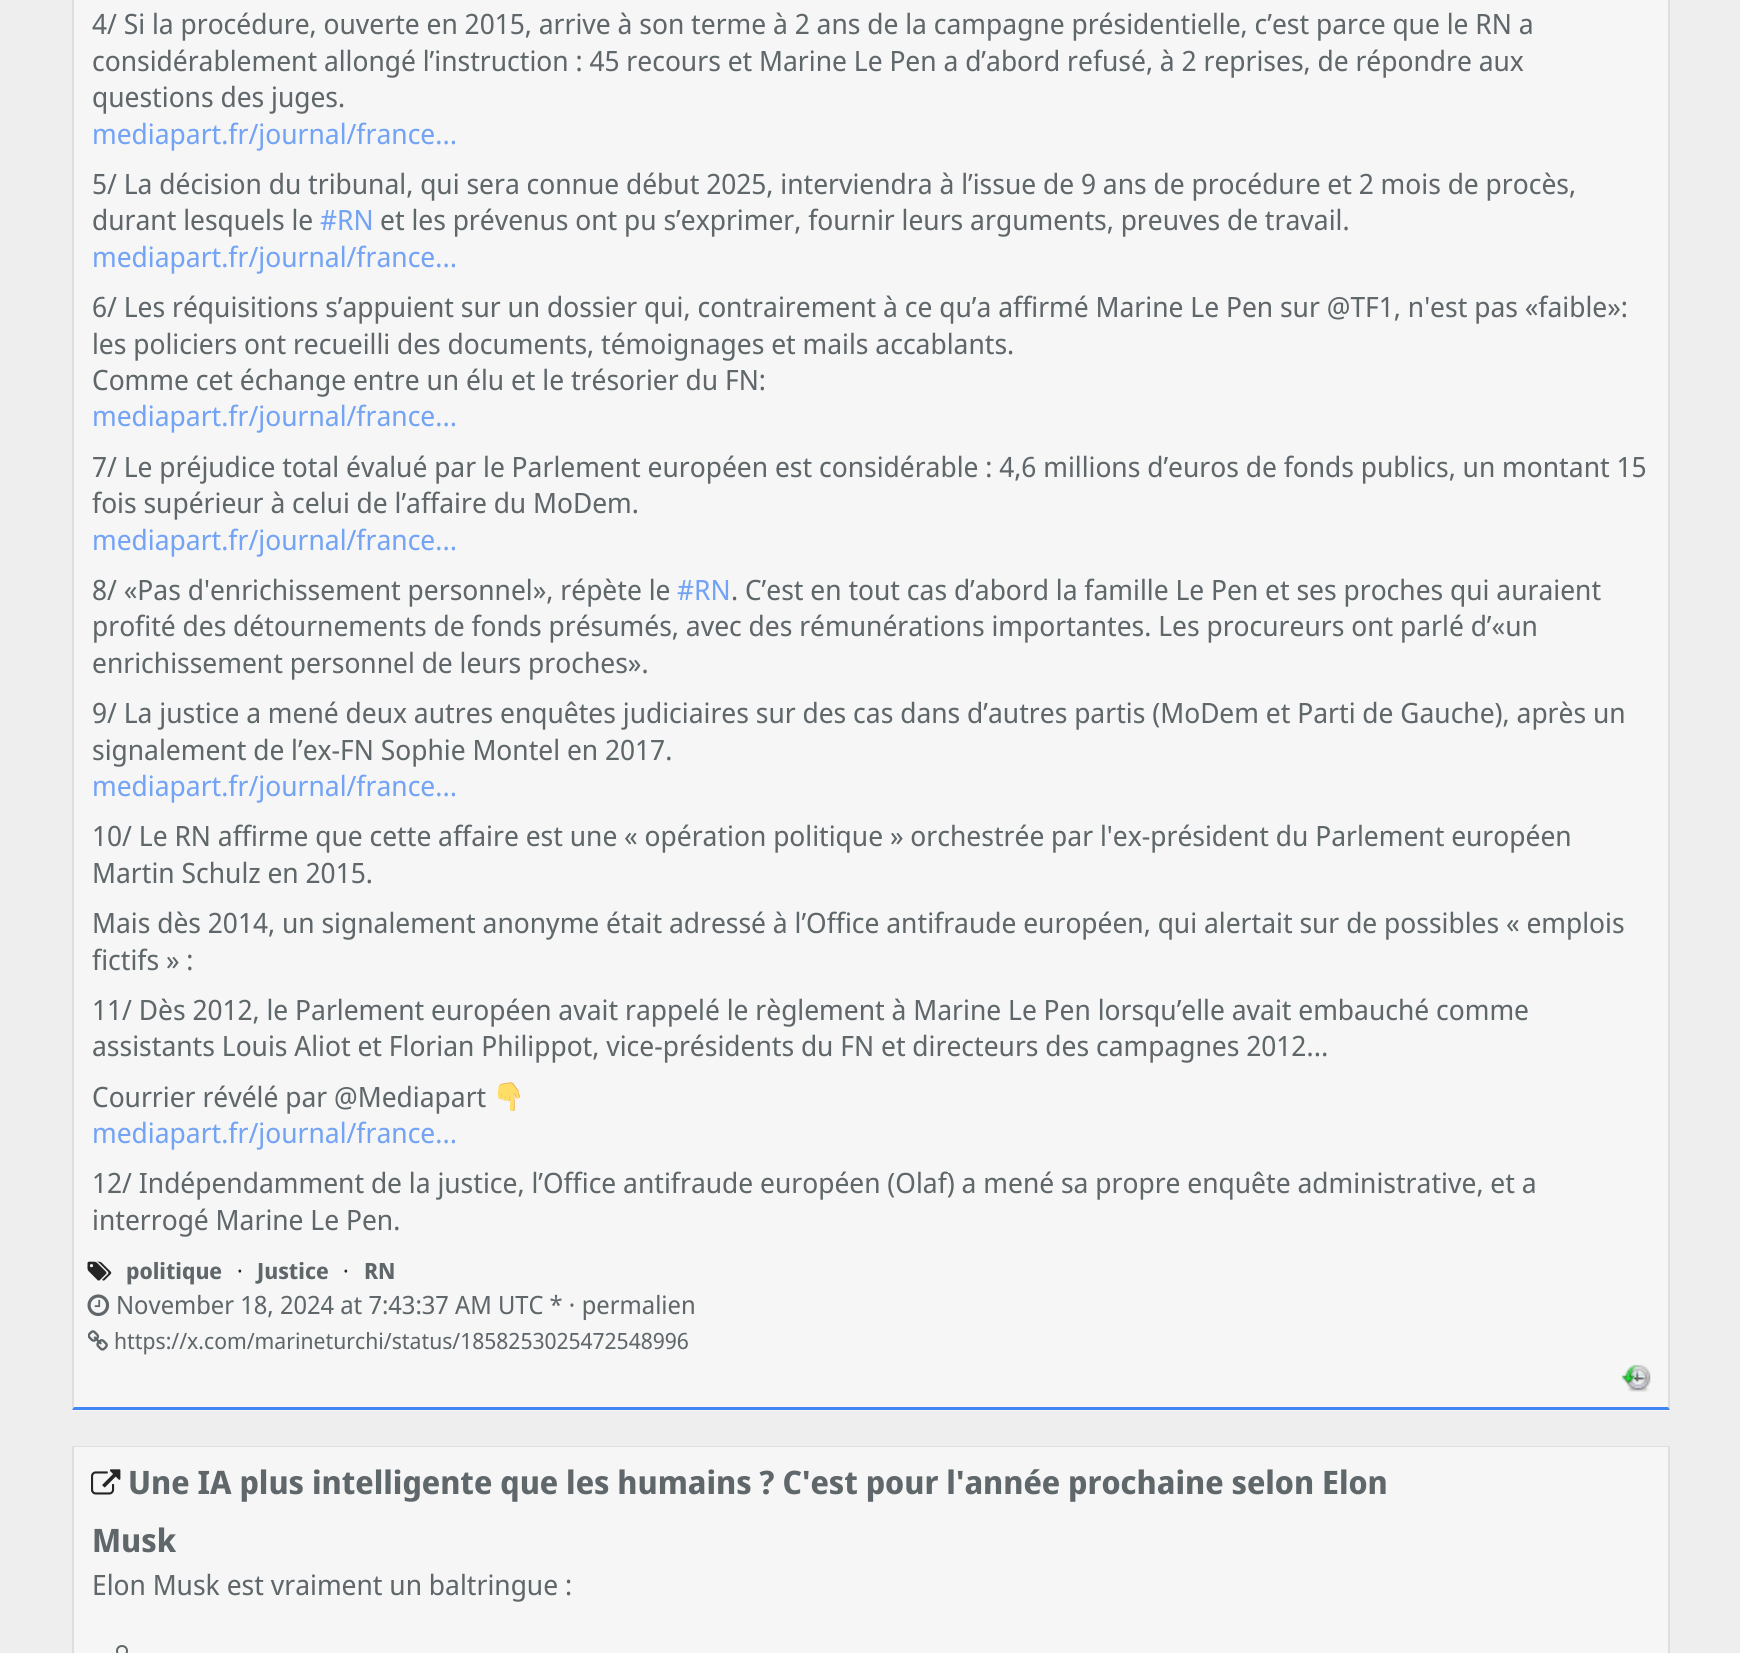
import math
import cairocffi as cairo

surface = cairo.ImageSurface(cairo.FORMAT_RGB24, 1740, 1653)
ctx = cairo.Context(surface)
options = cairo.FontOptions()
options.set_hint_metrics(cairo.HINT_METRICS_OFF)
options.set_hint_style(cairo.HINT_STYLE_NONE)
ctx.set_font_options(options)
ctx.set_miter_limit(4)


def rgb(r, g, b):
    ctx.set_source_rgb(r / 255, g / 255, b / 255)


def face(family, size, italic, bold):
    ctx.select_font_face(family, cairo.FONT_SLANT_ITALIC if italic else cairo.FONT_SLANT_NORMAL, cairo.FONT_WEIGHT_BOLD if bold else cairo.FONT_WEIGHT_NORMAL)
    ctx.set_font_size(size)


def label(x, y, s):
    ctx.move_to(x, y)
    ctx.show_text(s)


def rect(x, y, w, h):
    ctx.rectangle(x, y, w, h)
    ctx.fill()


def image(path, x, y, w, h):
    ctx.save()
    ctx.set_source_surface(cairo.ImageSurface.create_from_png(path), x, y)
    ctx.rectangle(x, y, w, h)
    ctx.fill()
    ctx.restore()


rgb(238, 238, 238)
ctx.paint()
rgb(246, 246, 246)
rect(72, 0, 1598, 1411)
rgb(222, 222, 222)
ctx.new_path()
ctx.move_to(1670, -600)
ctx.line_to(1670, 1410)
ctx.line_to(1668, 1407)
ctx.line_to(1668, -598)
ctx.close_path()
ctx.fill()
rgb(66, 133, 244)
ctx.new_path()
ctx.move_to(1670, 1410)
ctx.line_to(72, 1410)
ctx.line_to(74, 1407)
ctx.line_to(1668, 1407)
ctx.close_path()
ctx.fill()
ctx.set_source_rgba(0.725, 0.725, 0.725, 0.4)
ctx.new_path()
ctx.move_to(72, 1410)
ctx.line_to(72, -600)
ctx.line_to(74, -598)
ctx.line_to(74, 1407)
ctx.close_path()
ctx.fill()
face('Noto Sans Display', 28, 0, 0)
rgb(95, 103, 106)
label(92, 34, '4/ Si la procédure, ouverte en 2015, arrive à son terme à 2 ans de la campagne présidentielle, c’est parce que le RN a')
label(92, 71, 'considérablement allongé l’instruction : 45 recours et Marine Le Pen a d’abord refusé, à 2 reprises, de répondre aux')
label(92, 107, 'questions des juges.')
rgb(115, 163, 244)
label(92, 144, 'mediapart.fr/journal/france…')
rgb(95, 103, 106)
label(92, 194, '5/ La décision du tribunal, qui sera connue début 2025, interviendra à l’issue de 9 ans de procédure et 2 mois de procès,')
label(92, 230, 'durant lesquels le')
rgb(115, 163, 244)
label(320, 230, '#RN')
rgb(95, 103, 106)
label(380, 230, 'et les prévenus ont pu s’exprimer, fournir leurs arguments, preuves de travail.')
rgb(115, 163, 244)
label(92, 267, 'mediapart.fr/journal/france…')
rgb(95, 103, 106)
label(92, 317, '6/ Les réquisitions s’appuient sur un dossier qui, contrairement à ce qu’a affirmé Marine Le Pen sur @TF1, n\'est pas «faible»:')
label(92, 354, 'les policiers ont recueilli des documents, témoignages et mails accablants.')
label(92, 390, 'Comme cet échange entre un élu et le trésorier du FN:')
rgb(115, 163, 244)
label(92, 426, 'mediapart.fr/journal/france…')
rgb(95, 103, 106)
label(92, 477, '7/ Le préjudice total évalué par le Parlement européen est considérable : 4,6 millions d’euros de fonds publics, un montant 15')
label(92, 513, 'fois supérieur à celui de l’affaire du MoDem.')
rgb(115, 163, 244)
label(92, 550, 'mediapart.fr/journal/france…')
rgb(95, 103, 106)
label(92, 600, '8/ «Pas d\'enrichissement personnel», répète le')
rgb(115, 163, 244)
label(677, 600, '#RN')
rgb(95, 103, 106)
label(731, 600, '. C’est en tout cas d’abord la famille Le Pen et ses proches qui auraient')
label(92, 636, 'profité des détournements de fonds présumés, avec des rémunérations importantes. Les procureurs ont parlé d’«un')
label(92, 673, 'enrichissement personnel de leurs proches».')
label(92, 723, '9/ La justice a mené deux autres enquêtes judiciaires sur des cas dans d’autres partis (MoDem et Parti de Gauche), après un')
label(92, 760, 'signalement de l’ex-FN Sophie Montel en 2017.')
rgb(115, 163, 244)
label(92, 796, 'mediapart.fr/journal/france…')
rgb(95, 103, 106)
label(92, 846, '10/ Le RN affirme que cette affaire est une « opération politique » orchestrée par l\'ex-président du Parlement européen')
label(92, 883, 'Martin Schulz en 2015.')
label(92, 933, 'Mais dès 2014, un signalement anonyme était adressé à l’Office antifraude européen, qui alertait sur de possibles « emplois')
label(92, 970, 'fictifs » :')
label(92, 1020, '11/ Dès 2012, le Parlement européen avait rappelé le règlement à Marine Le Pen lorsqu’elle avait embauché comme')
label(92, 1056, 'assistants Louis Aliot et Florian Philippot, vice-présidents du FN et directeurs des campagnes 2012…')
label(92, 1107, 'Courrier révélé par @Mediapart')
image('image0.png', 497, 1082, 23, 29)
rgb(115, 163, 244)
label(92, 1143, 'mediapart.fr/journal/france…')
rgb(95, 103, 106)
label(92, 1193, '12/ Indépendamment de la justice, l’Office antifraude européen (Olaf) a mené sa propre enquête administrative, et a')
label(92, 1230, 'interrogé Marine Le Pen.')
image('image1.png', 87, 1261, 25, 20)
face('Noto Sans Display', 22.4, 0, 1)
label(126, 1279, 'politique')
face('Noto Sans Display', 22.4, 0, 0)
rgb(37, 37, 37)
label(237, 1279, '·')
face('Noto Sans Display', 22.4, 0, 1)
rgb(95, 103, 106)
label(257, 1279, 'Justice')
face('Noto Sans Display', 22.4, 0, 0)
rgb(37, 37, 37)
label(343, 1279, '·')
face('Noto Sans Display', 22.4, 0, 1)
rgb(95, 103, 106)
label(364, 1279, 'RN')
image('image2.png', 87, 1294, 23, 23)
face('Noto Sans Display', 25.2, 0, 0)
label(116, 1314, 'November 18, 2024 at 7:43:37 AM UTC * · permalien')
image('image3.png', 88, 1330, 20, 21)
face('Noto Sans Display', 22.4, 0, 0)
label(114, 1349, 'https://x.com/marineturchi/status/1858253025472548996')
image('image4.png', 1622, 1364, 29, 28)
rgb(246, 246, 246)
rect(72, 1446, 1598, 207)
rgb(222, 222, 222)
ctx.new_path()
ctx.move_to(72, 1446)
ctx.line_to(1670, 1446)
ctx.line_to(1668, 1447)
ctx.line_to(74, 1447)
ctx.close_path()
ctx.fill()
ctx.set_source_rgba(0.725, 0.725, 0.725, 0.4)
ctx.new_path()
ctx.move_to(1670, 1446)
ctx.line_to(1670, 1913)
ctx.line_to(1668, 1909)
ctx.line_to(1668, 1447)
ctx.close_path()
ctx.fill()
ctx.new_path()
ctx.move_to(72, 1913)
ctx.line_to(72, 1446)
ctx.line_to(74, 1447)
ctx.line_to(74, 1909)
ctx.close_path()
ctx.fill()
image('image5.png', 91, 1469, 30, 26)
face('Noto Sans Display', 32.35, 0, 1)
rgb(95, 103, 106)
label(128, 1494, 'Une IA plus intelligente que les humains ? C\'est pour l\'année prochaine selon Elon')
label(92, 1552, 'Musk')
face('Noto Sans Display', 28, 0, 0)
label(92, 1595, 'Elon Musk est vraiment un baltringue :')
ctx.new_path()
ctx.arc(122, 1651, 5, 0, 2 * math.pi)
ctx.stroke()
surface.write_to_png('render.png')
